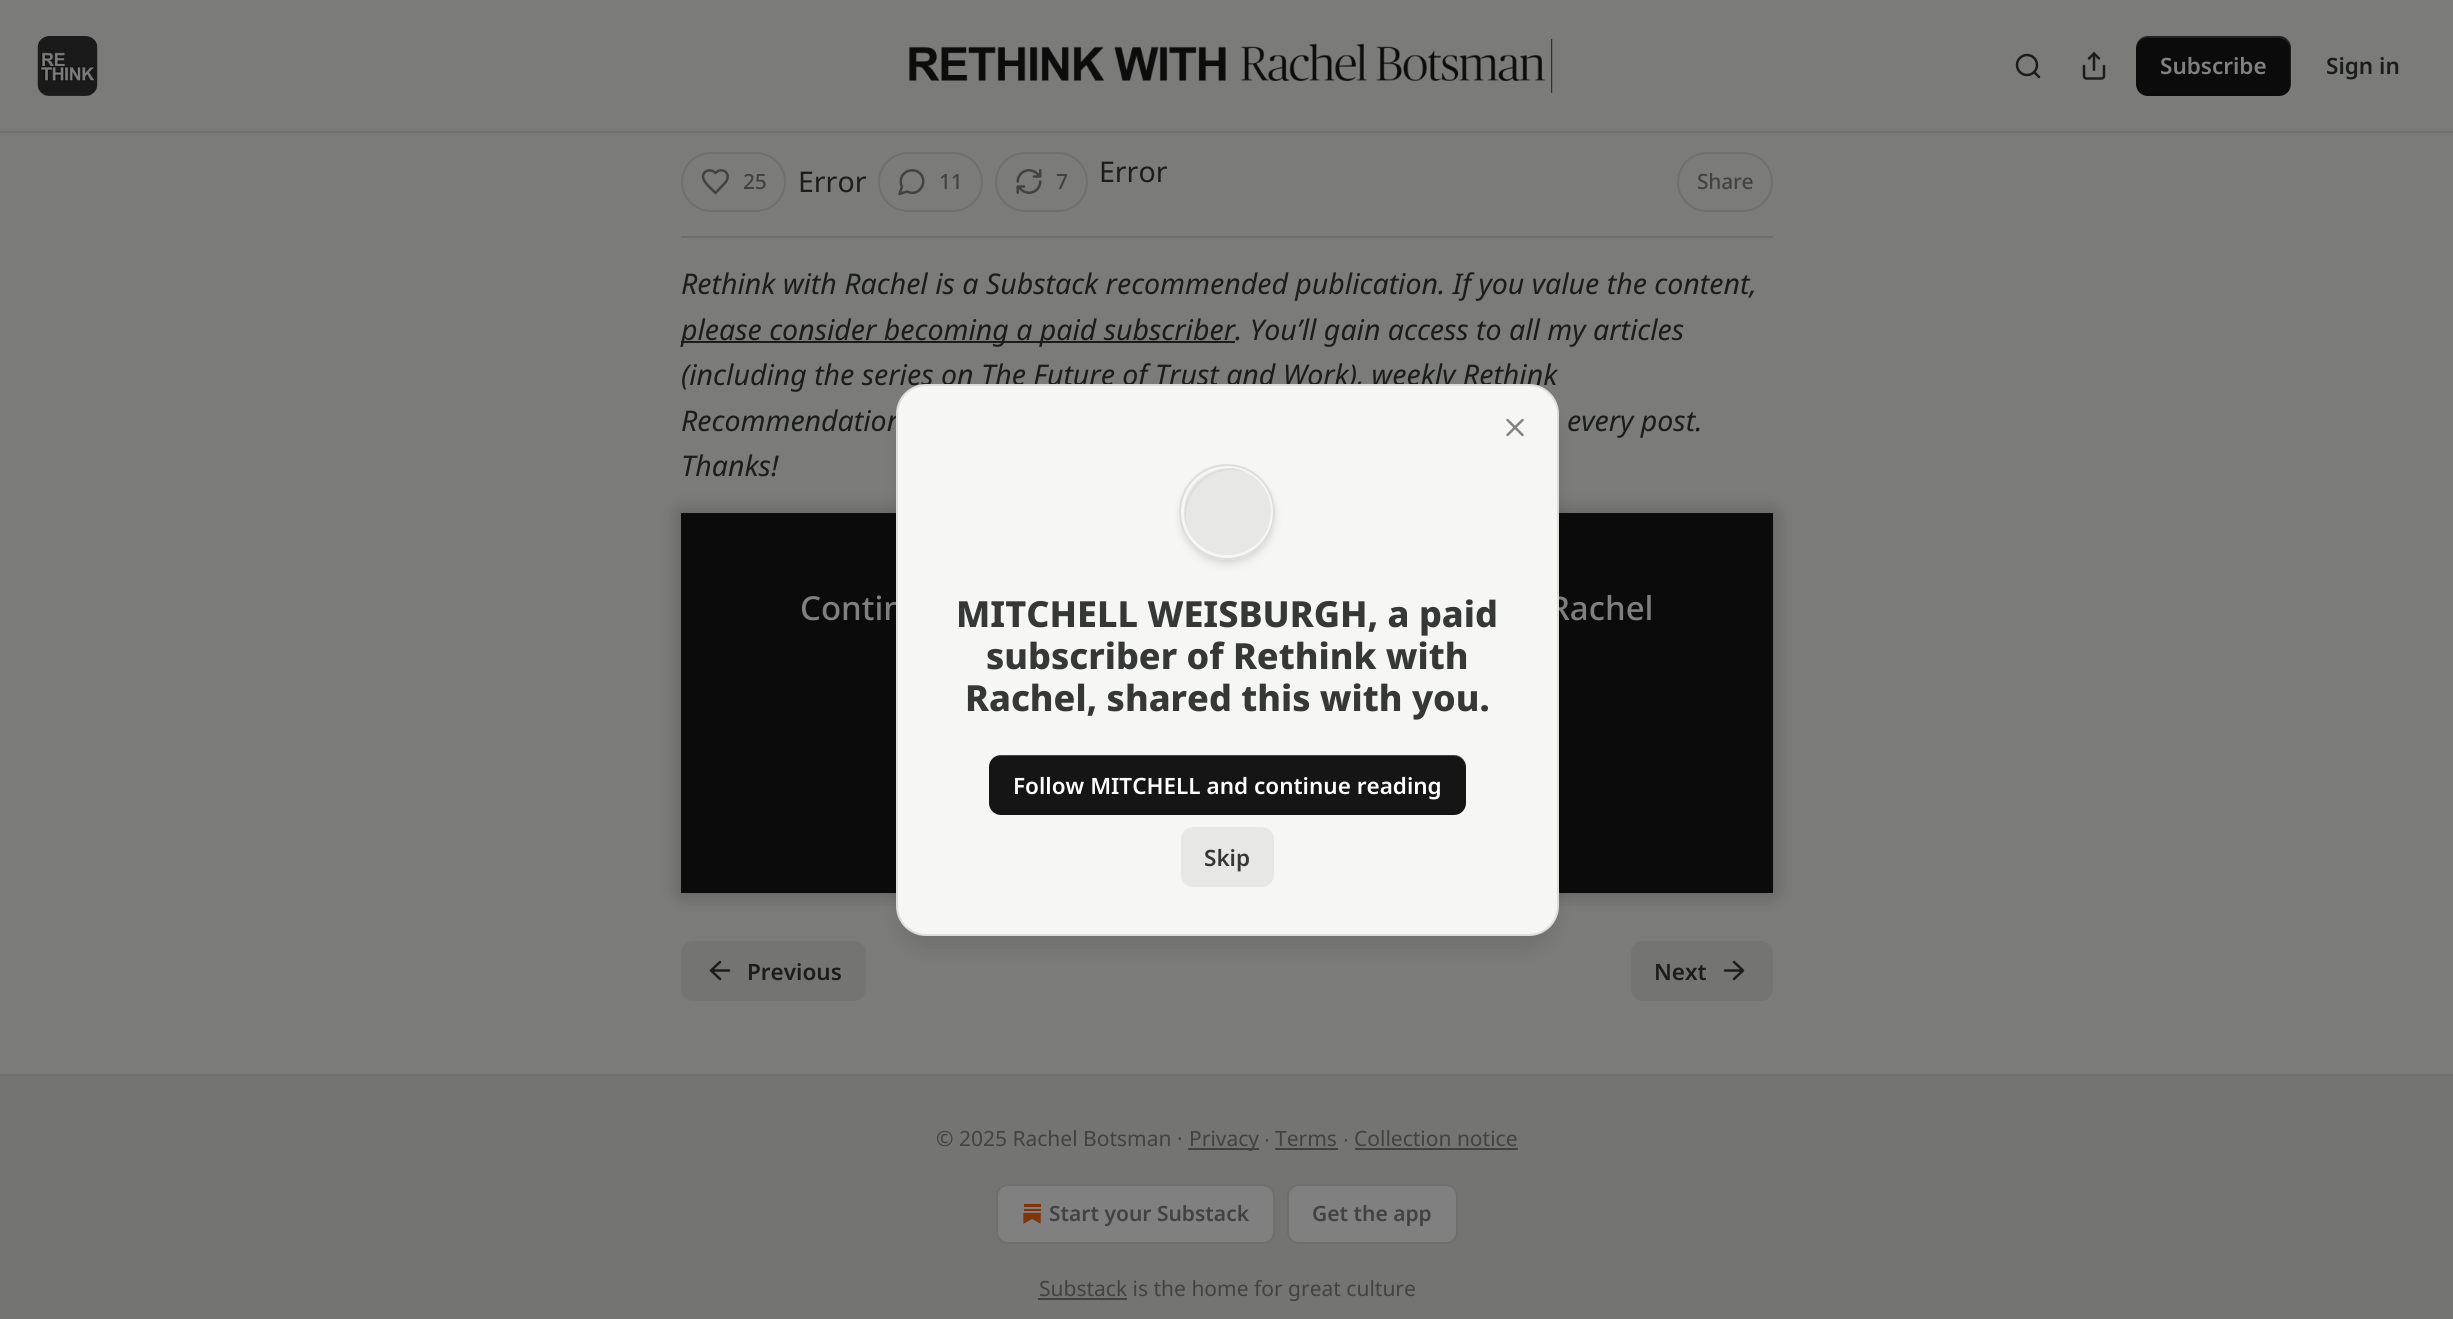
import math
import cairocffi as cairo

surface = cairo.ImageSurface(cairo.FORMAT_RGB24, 2453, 1319)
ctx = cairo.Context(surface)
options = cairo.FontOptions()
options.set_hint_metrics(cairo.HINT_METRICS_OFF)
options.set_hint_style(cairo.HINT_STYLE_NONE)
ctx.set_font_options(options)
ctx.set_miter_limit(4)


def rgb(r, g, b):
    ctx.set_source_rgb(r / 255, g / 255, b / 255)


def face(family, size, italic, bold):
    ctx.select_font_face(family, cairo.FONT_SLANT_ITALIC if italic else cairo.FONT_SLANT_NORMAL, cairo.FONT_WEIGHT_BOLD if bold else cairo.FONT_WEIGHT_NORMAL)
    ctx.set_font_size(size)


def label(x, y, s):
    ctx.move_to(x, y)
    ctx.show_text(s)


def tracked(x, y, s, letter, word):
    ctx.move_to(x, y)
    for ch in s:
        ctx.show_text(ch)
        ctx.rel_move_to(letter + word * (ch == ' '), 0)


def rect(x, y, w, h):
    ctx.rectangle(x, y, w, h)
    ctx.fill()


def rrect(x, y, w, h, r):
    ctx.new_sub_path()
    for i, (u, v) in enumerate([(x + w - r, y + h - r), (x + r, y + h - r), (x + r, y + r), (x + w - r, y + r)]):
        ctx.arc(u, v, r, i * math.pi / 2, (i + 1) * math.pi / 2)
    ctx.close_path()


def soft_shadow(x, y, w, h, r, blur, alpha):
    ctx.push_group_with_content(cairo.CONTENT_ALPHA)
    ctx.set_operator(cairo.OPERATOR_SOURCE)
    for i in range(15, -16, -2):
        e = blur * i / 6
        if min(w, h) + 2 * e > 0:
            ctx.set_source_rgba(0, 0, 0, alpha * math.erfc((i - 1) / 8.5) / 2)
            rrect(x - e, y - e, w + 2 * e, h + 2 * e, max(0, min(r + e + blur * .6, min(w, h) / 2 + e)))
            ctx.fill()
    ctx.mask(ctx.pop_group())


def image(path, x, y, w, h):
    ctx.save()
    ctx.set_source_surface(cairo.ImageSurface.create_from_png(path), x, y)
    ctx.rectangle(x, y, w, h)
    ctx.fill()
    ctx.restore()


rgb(123, 123, 122)
ctx.paint()
rgb(111, 111, 110)
rect(0, 131, 2453, 2)
rgb(128, 128, 128)
rrect(38, 36, 60, 60, 12)
ctx.fill()
image('image0.png', 37, 36, 61, 60)
image('image1.png', 909, 39, 644, 54)
ctx.arc(2027, 65, 10, 0, 2 * math.pi)
rgb(27, 28, 28)
ctx.set_line_width(2.5)
ctx.stroke()
ctx.new_path()
ctx.move_to(2039, 77)
ctx.line_to(2034, 72)
ctx.set_line_cap(cairo.LINE_CAP_ROUND)
ctx.set_line_join(cairo.LINE_JOIN_ROUND)
ctx.stroke()
image('image2.png', 2082, 52, 24, 28)
rgb(11, 11, 11)
rrect(2136, 36, 155, 60, 12)
ctx.fill()
ctx.set_source_rgba(0, 0, 0, 0.1)
ctx.new_path()
ctx.move_to(2136, 82)
ctx.line_to(2136, 84)
ctx.curve_to(2136, 91, 2141, 96, 2148, 96)
ctx.line_to(2279, 96)
ctx.curve_to(2286, 96, 2291, 91, 2291, 84)
ctx.line_to(2291, 48)
ctx.curve_to(2291, 46, 2290, 43, 2289, 41)
ctx.line_to(2290, 46)
ctx.line_to(2290, 82)
ctx.curve_to(2290, 89, 2285, 94, 2278, 94)
ctx.line_to(2148, 94)
ctx.curve_to(2141, 94, 2136, 89, 2136, 82)
ctx.close_path()
ctx.fill()
ctx.set_source_rgba(0.502, 0.502, 0.502, 0.2)
ctx.new_path()
ctx.move_to(2148, 38)
ctx.line_to(2278, 38)
ctx.curve_to(2285, 38, 2290, 43, 2290, 50)
ctx.line_to(2290, 86)
ctx.line_to(2289, 91)
ctx.curve_to(2290, 89, 2291, 86, 2291, 84)
ctx.line_to(2291, 48)
ctx.curve_to(2291, 41, 2286, 36, 2279, 36)
ctx.line_to(2148, 36)
ctx.curve_to(2141, 36, 2136, 41, 2136, 48)
ctx.line_to(2136, 50)
ctx.curve_to(2136, 43, 2141, 38, 2148, 38)
ctx.close_path()
ctx.fill()
face('Noto Sans SemiBold', 22.5, 0, 0)
rgb(128, 128, 128)
label(2160, 74, 'Subscribe')
rgb(27, 28, 28)
label(2326, 74, 'Sign in')
rgb(111, 111, 110)
rect(681, 236, 1092, 2)
rrect(682, 153, 103, 58, 29)
ctx.set_line_width(2)
ctx.set_line_cap(cairo.LINE_CAP_BUTT)
ctx.set_line_join(cairo.LINE_JOIN_MITER)
ctx.stroke()
ctx.new_path()
ctx.move_to(724, 184)
ctx.curve_to(733.5, 175, 722.5, 165.5, 715.5, 173)
ctx.curve_to(710, 167.5, 701, 171.5, 703.5, 179)
ctx.curve_to(704.5, 183, 712.5, 190, 715.5, 193)
ctx.close_path()
rgb(66, 66, 66)
ctx.set_line_width(2.5)
ctx.set_line_cap(cairo.LINE_CAP_ROUND)
ctx.set_line_join(cairo.LINE_JOIN_ROUND)
ctx.stroke()
face('Noto Sans Medium', 21, 0, 0)
tracked(743, 189, '25', -0.25, 0)
face('Noto Sans', 28.5, 0, 0)
rgb(27, 28, 28)
label(798, 192, 'Error')
rrect(879, 153, 103, 58, 29)
rgb(111, 111, 110)
ctx.set_line_width(2)
ctx.set_line_cap(cairo.LINE_CAP_BUTT)
ctx.set_line_join(cairo.LINE_JOIN_MITER)
ctx.stroke()
ctx.new_path()
ctx.move_to(907, 191.5)
ctx.curve_to(920.5, 198.5, 930.5, 177.5, 916.5, 171)
ctx.curve_to(913.5, 170, 910, 170, 907, 171.5)
ctx.curve_to(901.5, 174, 899, 181, 902, 186.5)
ctx.line_to(899.5, 194)
ctx.close_path()
rgb(66, 66, 66)
ctx.set_line_width(2.5)
ctx.set_line_cap(cairo.LINE_CAP_ROUND)
ctx.set_line_join(cairo.LINE_JOIN_ROUND)
ctx.stroke()
face('Noto Sans Medium', 21, 0, 0)
tracked(939, 189, '11', -0.25, 0)
rrect(996, 153, 91, 58, 29)
rgb(111, 111, 110)
ctx.set_line_width(2)
ctx.set_line_cap(cairo.LINE_CAP_BUTT)
ctx.set_line_join(cairo.LINE_JOIN_MITER)
ctx.stroke()
image('image3.png', 1016, 169, 26, 25)
rgb(66, 66, 66)
tracked(1056, 189, '7', -0.25, 0)
face('Noto Sans', 28.5, 0, 0)
rgb(27, 28, 28)
label(1099, 182, 'Error')
rrect(1678, 153, 94, 58, 29)
rgb(111, 111, 110)
ctx.stroke()
face('Noto Sans Medium', 21, 0, 0)
rgb(66, 66, 66)
tracked(1697, 189, 'Share', -0.25, 0)
face('Noto Sans', 28.5, 1, 0)
rgb(27, 28, 28)
label(681, 294, 'Rethink with Rachel is a Substack recommended publication. If you value the content,')
rect(681, 341, 554, 2)
label(681, 340, 'please consider becoming a paid subscriber. You’ll gain access to all my articles')
label(681, 385, '(including the series on The Future of Trust and Work), weekly Rethink')
label(681, 431, 'Recommendation')
label(1567, 431, 'every post.')
label(681, 476, 'Thanks!')
rgb(11, 11, 11)
rect(681, 513, 1092, 380)
ctx.save()
ctx.set_fill_rule(cairo.FILL_RULE_EVEN_ODD)
ctx.new_path()
ctx.move_to(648, 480)
ctx.line_to(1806, 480)
ctx.line_to(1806, 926)
ctx.line_to(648, 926)
ctx.close_path()
ctx.move_to(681, 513)
ctx.line_to(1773, 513)
ctx.line_to(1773, 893)
ctx.line_to(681, 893)
ctx.close_path()
ctx.clip()
rgb(0, 0, 0)
soft_shadow(681, 513, 1092, 380, 0, 10.5, 0.25)
ctx.restore()
face('Noto Sans Medium', 33, 0, 0)
rgb(128, 128, 128)
label(800, 620, 'Contin')
label(1549, 620, 'Rachel')
rgb(116, 116, 115)
rrect(681, 941, 185, 60, 12)
ctx.fill()
ctx.new_path()
ctx.move_to(720, 979)
ctx.line_to(711, 970.5)
ctx.line_to(720, 962)
ctx.move_to(729, 970.5)
ctx.line_to(711, 970.5)
rgb(27, 28, 28)
ctx.set_line_width(2.5)
ctx.set_line_cap(cairo.LINE_CAP_ROUND)
ctx.set_line_join(cairo.LINE_JOIN_ROUND)
ctx.stroke()
face('Noto Sans SemiBold', 22.5, 0, 0)
label(747, 980, 'Previous')
rgb(116, 116, 115)
rrect(1631, 941, 142, 60, 12)
ctx.fill()
rgb(27, 28, 28)
label(1654, 980, 'Next')
ctx.new_path()
ctx.move_to(1725, 970.5)
ctx.line_to(1743, 970.5)
ctx.move_to(1734, 962)
ctx.line_to(1743, 970.5)
ctx.line_to(1734, 979)
ctx.stroke()
rgb(116, 116, 115)
rect(0, 1076, 2453, 243)
rgb(111, 111, 110)
rect(0, 1074, 2453, 2)
face('Noto Sans', 21, 0, 0)
rgb(66, 66, 66)
label(936, 1146, '© 2025 Rachel Botsman ·')
rect(1188, 1148, 71, 2)
label(1189, 1146, 'Privacy')
face('Liberation Sans', 21, 0, 0)
label(1264, 1146, '∙')
face('Noto Sans', 21, 0, 0)
label(1275, 1146, 'Terms')
rect(1275, 1148, 63, 2)
face('Liberation Sans', 21, 0, 0)
label(1343, 1146, '∙')
face('Noto Sans', 21, 0, 0)
label(1354, 1146, 'Collection notice')
rect(1355, 1148, 163, 2)
rgb(128, 128, 128)
rrect(997, 1185, 277, 58, 11)
ctx.fill_preserve()
rgb(111, 111, 110)
ctx.set_line_width(2)
ctx.set_line_cap(cairo.LINE_CAP_BUTT)
ctx.set_line_join(cairo.LINE_JOIN_MITER)
ctx.stroke()
image('image4.png', 1023, 1204, 18, 20)
face('Noto Sans SemiBold', 21, 0, 0)
rgb(66, 66, 66)
label(1049, 1221, 'Start your Substack')
rgb(128, 128, 128)
rrect(1288, 1185, 169, 58, 11)
ctx.fill_preserve()
rgb(111, 111, 110)
ctx.stroke()
rgb(66, 66, 66)
label(1312, 1221, 'Get the app')
rect(1038, 1298, 89, 2)
face('Noto Sans', 21, 0, 0)
label(1039, 1296, 'Substack is the home for great culture')
rgb(0, 0, 0)
soft_shadow(900, 404, 654, 543, 26, 11, 0.1)
rgb(246, 246, 244)
rrect(897, 385, 661, 550, 29)
ctx.fill_preserve()
rgb(221, 221, 220)
ctx.stroke()
ctx.new_path()
ctx.move_to(1522.5, 420)
ctx.line_to(1507.5, 435)
ctx.move_to(1507.5, 420)
ctx.line_to(1522.5, 435)
rgb(131, 131, 131)
ctx.set_line_width(2.5)
ctx.set_line_cap(cairo.LINE_CAP_ROUND)
ctx.set_line_join(cairo.LINE_JOIN_ROUND)
ctx.stroke()
rgb(0, 0, 0)
soft_shadow(1181, 468, 93, 93, 46.5, 3, 0.06)
soft_shadow(1181, 471, 93, 93, 46.5, 4.5, 0.1)
rgb(231, 231, 229)
ctx.arc(1227, 512, 45.5, 0, 2 * math.pi)
ctx.fill_preserve()
rgb(246, 246, 244)
ctx.set_line_width(5)
ctx.set_line_cap(cairo.LINE_CAP_BUTT)
ctx.set_line_join(cairo.LINE_JOIN_MITER)
ctx.stroke()
ctx.arc(1227, 512, 47, 0, 2 * math.pi)
rgb(221, 221, 220)
ctx.set_line_width(2)
ctx.stroke()
ctx.save()
rrect(1184, 468, 87, 87, 43.5)
ctx.clip()
rgb(231, 231, 229)
ctx.arc(1232, 516, 48, 0, 2 * math.pi)
ctx.fill()
ctx.restore()
ctx.new_path()
ctx.move_to(1232, 470)
ctx.curve_to(1201, 470, 1179, 501, 1188, 530)
ctx.curve_to(1172, 496, 1212, 456, 1246, 472)
ctx.curve_to(1242, 471, 1237, 470, 1232, 470)
ctx.close_path()
ctx.fill()
face('Noto Sans ExtraBold', 36, 0, 0)
rgb(54, 55, 55)
label(956, 627, 'MITCHELL WEISBURGH, a paid')
label(986, 669, 'subscriber of Rethink with')
label(965, 711, 'Rachel, shared this with you.')
rgb(21, 21, 21)
rrect(989, 755, 477, 60, 12)
ctx.fill()
ctx.set_source_rgba(0, 0, 0, 0.1)
ctx.new_path()
ctx.move_to(990, 807)
ctx.curve_to(991, 812, 996, 815, 1001, 815)
ctx.line_to(1454, 815)
ctx.curve_to(1461, 815, 1466, 810, 1466, 803)
ctx.line_to(1466, 801)
ctx.curve_to(1466, 808, 1460, 813, 1454, 813)
ctx.line_to(1000, 813)
ctx.curve_to(996, 813, 992, 811, 990, 807)
ctx.close_path()
ctx.fill()
ctx.set_source_rgba(1, 1, 1, 0.2)
ctx.new_path()
ctx.move_to(1000, 756)
ctx.line_to(1454, 756)
ctx.curve_to(1460, 756, 1466, 761, 1466, 768)
ctx.line_to(1466, 767)
ctx.curve_to(1466, 760, 1461, 755, 1454, 755)
ctx.line_to(1001, 755)
ctx.curve_to(997, 755, 994, 757, 992, 759)
ctx.curve_to(994, 757, 997, 756, 1000, 756)
ctx.close_path()
ctx.fill()
face('Noto Sans SemiBold', 22.5, 0, 0)
rgb(255, 255, 255)
label(1013, 794, 'Follow MITCHELL and continue reading')
rgb(231, 231, 229)
rrect(1181, 827, 93, 60, 12)
ctx.fill()
rgb(54, 55, 55)
label(1204, 866, 'Skip')
surface.write_to_png('render.png')
